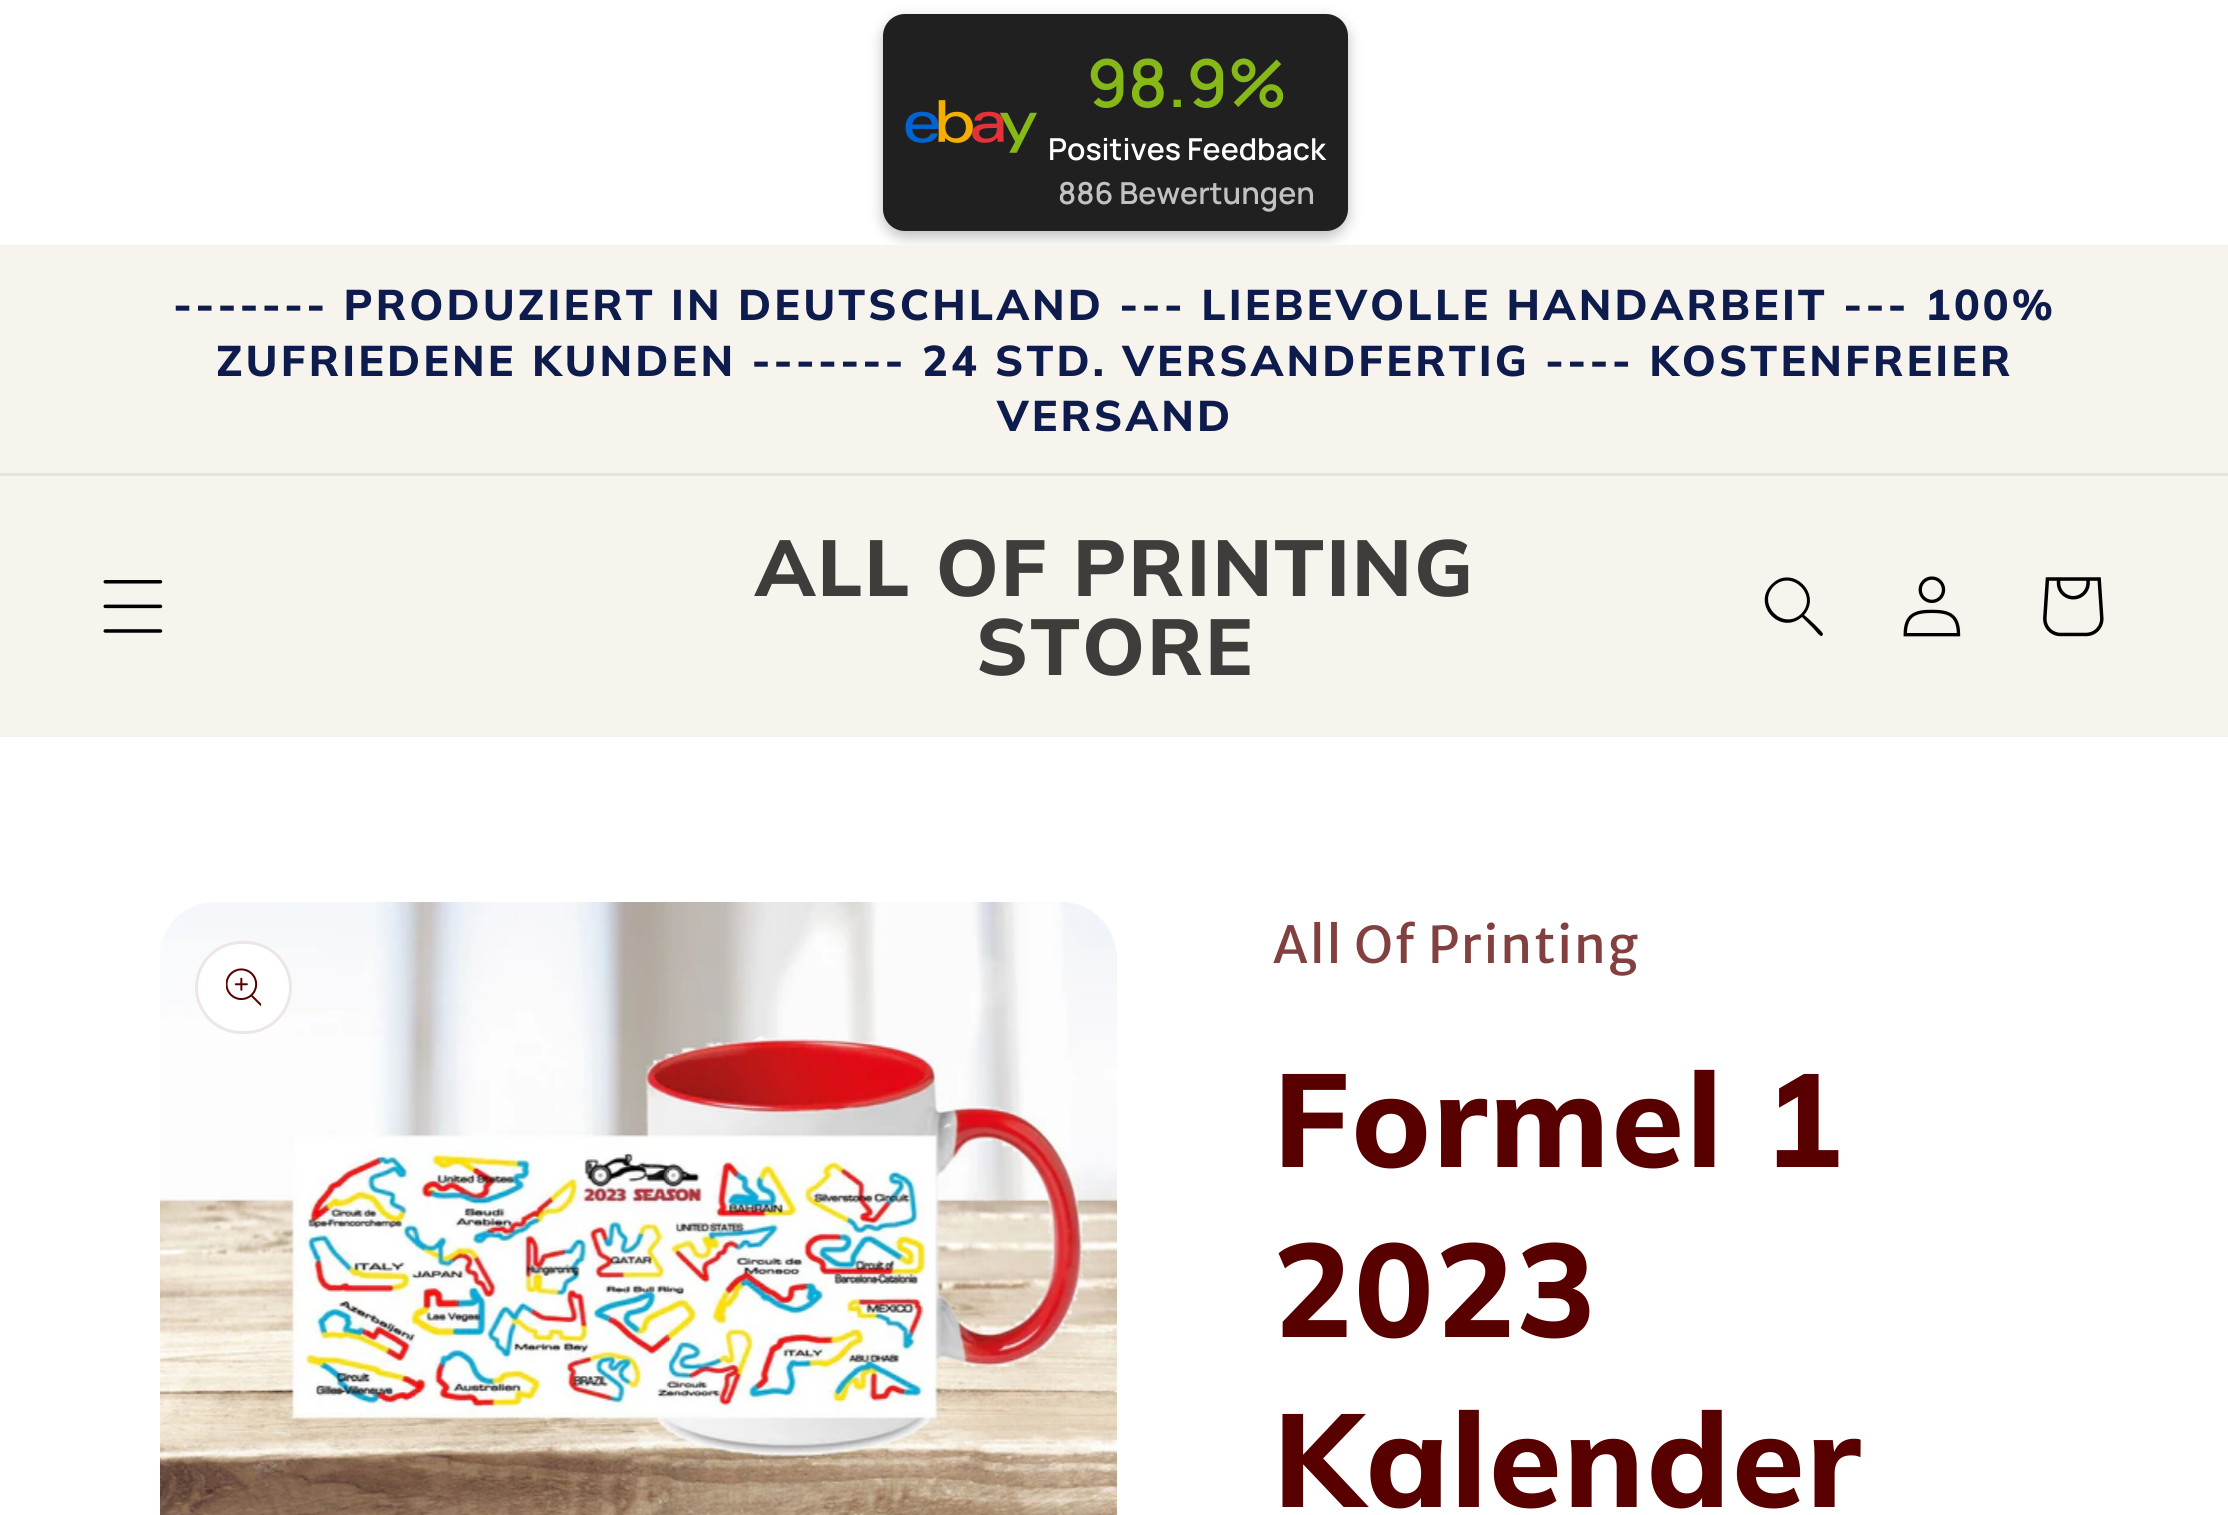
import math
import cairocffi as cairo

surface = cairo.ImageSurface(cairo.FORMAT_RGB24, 2228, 1515)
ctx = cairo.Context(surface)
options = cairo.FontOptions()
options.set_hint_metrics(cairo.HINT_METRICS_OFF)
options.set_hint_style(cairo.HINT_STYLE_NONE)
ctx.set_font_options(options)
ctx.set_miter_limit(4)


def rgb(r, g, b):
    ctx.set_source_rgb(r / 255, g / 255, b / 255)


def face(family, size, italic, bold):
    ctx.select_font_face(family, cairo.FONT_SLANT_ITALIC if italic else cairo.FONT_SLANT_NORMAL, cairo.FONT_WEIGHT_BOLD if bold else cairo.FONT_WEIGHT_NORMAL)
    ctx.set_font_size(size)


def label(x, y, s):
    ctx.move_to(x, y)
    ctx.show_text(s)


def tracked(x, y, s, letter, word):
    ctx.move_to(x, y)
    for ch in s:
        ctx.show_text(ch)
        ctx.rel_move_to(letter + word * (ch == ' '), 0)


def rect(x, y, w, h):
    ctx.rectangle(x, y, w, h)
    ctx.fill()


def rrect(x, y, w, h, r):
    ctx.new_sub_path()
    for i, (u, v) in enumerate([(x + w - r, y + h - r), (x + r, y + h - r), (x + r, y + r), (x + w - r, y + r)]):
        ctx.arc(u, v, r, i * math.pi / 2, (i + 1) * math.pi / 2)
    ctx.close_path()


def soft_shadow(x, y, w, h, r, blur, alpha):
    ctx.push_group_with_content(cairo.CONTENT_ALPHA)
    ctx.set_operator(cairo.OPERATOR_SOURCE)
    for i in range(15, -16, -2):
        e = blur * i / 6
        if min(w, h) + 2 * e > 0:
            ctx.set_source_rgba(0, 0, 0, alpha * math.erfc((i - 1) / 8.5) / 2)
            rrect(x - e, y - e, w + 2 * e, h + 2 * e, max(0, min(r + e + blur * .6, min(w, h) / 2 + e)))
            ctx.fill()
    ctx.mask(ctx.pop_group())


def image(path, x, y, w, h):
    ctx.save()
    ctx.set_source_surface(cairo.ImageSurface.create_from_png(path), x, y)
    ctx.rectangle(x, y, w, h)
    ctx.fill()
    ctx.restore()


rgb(255, 255, 255)
ctx.paint()
rgb(0, 0, 0)
soft_shadow(883, 19, 465, 218, 22, 7, 0.26)
rgb(32, 32, 32)
rrect(883, 14, 465, 217, 22)
ctx.fill()
image('image0.png', 905, 100, 132, 53)
face('Manrope SemiBold', 66, 0, 0)
rgb(134, 184, 23)
label(1087, 107, '98.9%')
face('Manrope SemiBold', 30.25, 0, 0)
rgb(255, 255, 255)
label(1048, 160, 'Positives Feedback')
rgb(194, 194, 194)
label(1058, 204, '886 Bewertungen')
rgb(247, 244, 237)
rect(0, 245, 2228, 228)
rgb(228, 227, 224)
rect(0, 473, 2228, 3)
face('Muli ExtraBold', 42.9, 0, 0)
rgb(14, 27, 77)
tracked(173, 320, '------- PRODUZIERT IN DEUTSCHLAND --- LIEBEVOLLE HANDARBEIT --- 100%', 3.15, 0)
tracked(216, 376, 'ZUFRIEDENE KUNDEN ------- 24 STD. VERSANDFERTIG ---- KOSTENFREIER', 3.15, 0)
tracked(997, 431, 'VERSAND', 3.15, 0)
rgb(247, 244, 237)
rect(0, 476, 2228, 261)
image('image1.png', 103, 580, 60, 53)
face('Muli ExtraBold', 79.25, 0, 0)
rgb(62, 61, 59)
tracked(755, 596, 'ALL OF PRINTING', 2, 0)
tracked(976, 675, 'STORE', 2, 0)
rgb(0, 0, 0)
ctx.set_fill_rule(cairo.FILL_RULE_EVEN_ODD)
ctx.new_path()
ctx.move_to(1801, 614)
ctx.curve_to(1783, 631, 1756, 604, 1774, 586)
ctx.curve_to(1792, 569, 1819, 596, 1801, 614)
ctx.close_path()
ctx.move_to(1802, 617)
ctx.curve_to(1780, 636, 1751, 604, 1772, 584)
ctx.curve_to(1792, 564, 1823, 594, 1804, 615)
ctx.curve_to(1807, 617, 1823, 632, 1823, 634)
ctx.line_to(1822, 636)
ctx.curve_to(1820, 637, 1815, 630, 1814, 629)
ctx.close_path()
ctx.fill()
image('image2.png', 1903, 576, 58, 61)
image('image3.png', 2043, 577, 61, 60)
image('image4.png', 160, 902, 957, 613)
rgb(255, 255, 255)
rrect(195, 941, 97, 93, 46.5)
ctx.fill()
rrect(196.5, 942.5, 94, 90, 45)
ctx.set_source_rgba(0.345, 0, 0, 0.1)
ctx.set_line_width(3)
ctx.stroke()
image('image5.png', 226, 968, 35, 39)
face('Merriweather Sans', 50.5, 0, 0)
rgb(130, 64, 64)
tracked(1273, 963, 'All Of Printing', 1.9, 0)
face('Muli ExtraBold', 132, 0, 0)
rgb(88, 0, 0)
tracked(1273, 1167, 'Formel 1', 2, 0)
tracked(1273, 1337, '2023', 2, 0)
tracked(1273, 1507, 'Kalender', 2, 0)
surface.write_to_png('render.png')
